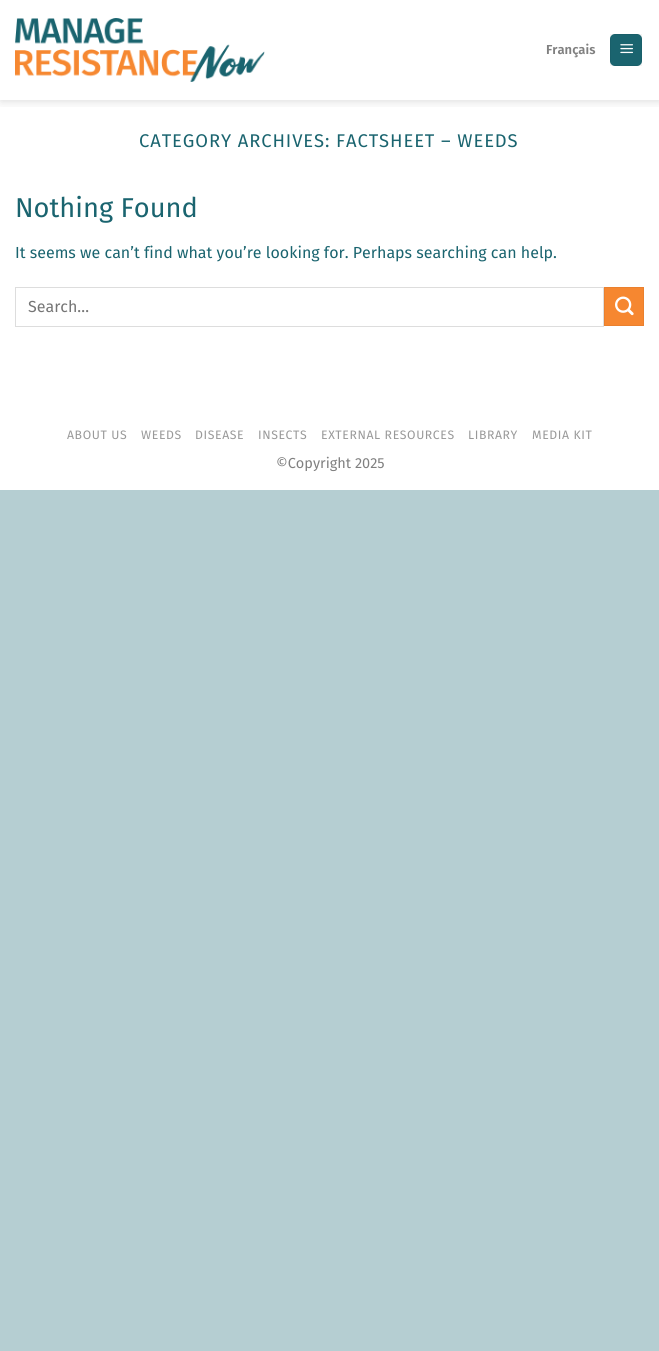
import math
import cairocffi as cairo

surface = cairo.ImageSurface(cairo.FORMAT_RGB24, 659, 1351)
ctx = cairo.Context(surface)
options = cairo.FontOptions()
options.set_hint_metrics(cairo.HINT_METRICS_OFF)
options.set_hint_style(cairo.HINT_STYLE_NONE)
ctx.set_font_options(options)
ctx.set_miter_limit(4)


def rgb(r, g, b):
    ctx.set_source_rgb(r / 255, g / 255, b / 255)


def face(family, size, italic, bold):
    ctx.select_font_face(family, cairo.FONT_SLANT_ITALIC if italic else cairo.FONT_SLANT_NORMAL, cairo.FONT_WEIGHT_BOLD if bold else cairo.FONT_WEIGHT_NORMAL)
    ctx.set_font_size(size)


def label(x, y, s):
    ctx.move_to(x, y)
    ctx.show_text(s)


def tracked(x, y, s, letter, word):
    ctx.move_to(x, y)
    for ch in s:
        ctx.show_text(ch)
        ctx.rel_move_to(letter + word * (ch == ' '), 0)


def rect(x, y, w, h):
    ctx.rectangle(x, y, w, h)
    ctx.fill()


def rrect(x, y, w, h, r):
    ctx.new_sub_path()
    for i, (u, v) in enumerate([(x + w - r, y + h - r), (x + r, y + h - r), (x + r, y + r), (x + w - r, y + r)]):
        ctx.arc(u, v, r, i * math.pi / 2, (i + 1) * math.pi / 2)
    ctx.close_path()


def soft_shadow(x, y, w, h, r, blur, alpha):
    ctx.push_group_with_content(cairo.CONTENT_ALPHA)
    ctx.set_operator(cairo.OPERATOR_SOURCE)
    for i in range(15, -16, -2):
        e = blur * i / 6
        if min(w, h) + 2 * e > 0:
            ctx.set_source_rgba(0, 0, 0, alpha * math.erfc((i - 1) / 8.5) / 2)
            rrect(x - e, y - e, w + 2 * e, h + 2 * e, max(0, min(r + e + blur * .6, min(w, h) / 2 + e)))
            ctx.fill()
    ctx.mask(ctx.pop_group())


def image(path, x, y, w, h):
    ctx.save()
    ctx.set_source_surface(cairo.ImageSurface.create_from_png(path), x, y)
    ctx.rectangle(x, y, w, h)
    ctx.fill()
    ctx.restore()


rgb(181, 206, 210)
ctx.paint()
rgb(255, 255, 255)
rect(0, 0, 659, 490)
ctx.save()
ctx.rectangle(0, 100, 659, 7)
ctx.clip()
rgb(0, 0, 0)
soft_shadow(1, 1, 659, 100, 0, 5, 0.15)
ctx.restore()
image('image0.png', 15, 18, 250, 64)
face('Fira Sans SemiBold', 13, 0, 0)
rgb(128, 128, 128)
label(546, 54, 'Français')
rgb(26, 100, 111)
rrect(610, 34, 32, 32, 5)
ctx.fill()
ctx.rectangle(610.5, 34.5, 31, 31)
ctx.set_source_rgba(0, 0, 0, 0.05)
ctx.set_line_width(1)
ctx.stroke()
image('image1.png', 620, 44, 13, 10)
face('Fira Sans', 18.4, 0, 0)
rgb(26, 100, 111)
tracked(139, 147, 'CATEGORY ARCHIVES: FACTSHEET – WEEDS', 0.9, 0)
face('Fira Sans', 27.25, 0, 0)
label(15, 217, 'Nothing Found')
face('Fira Sans', 16, 0, 0)
label(15, 258, 'It seems we can’t find what you’re looking for. Perhaps searching can help.')
ctx.rectangle(15.5, 287.5, 588, 39)
rgb(221, 221, 221)
ctx.stroke()
rgb(117, 117, 117)
label(28, 312, 'Search…')
rgb(246, 135, 48)
ctx.rectangle(604.5, 287.5, 39, 38)
ctx.fill_preserve()
rgb(234, 128, 46)
ctx.stroke()
image('image2.png', 615, 296, 19, 20)
face('Fira Sans', 12.25, 0, 0)
rgb(153, 153, 153)
tracked(67, 439, 'ABOUT US', 0.6, 0)
tracked(141, 439, 'WEEDS', 0.6, 0)
tracked(195, 439, 'DISEASE', 0.6, 0)
tracked(258, 439, 'INSECTS', 0.6, 0)
tracked(321, 439, 'EXTERNAL RESOURCES', 0.6, 0)
tracked(468, 439, 'LIBRARY', 0.6, 0)
tracked(532, 439, 'MEDIA KIT', 0.6, 0)
face('Fira Sans', 14.5, 0, 0)
rgb(128, 128, 128)
label(276, 468, '©Copyright 2025')
surface.write_to_png('render.png')
